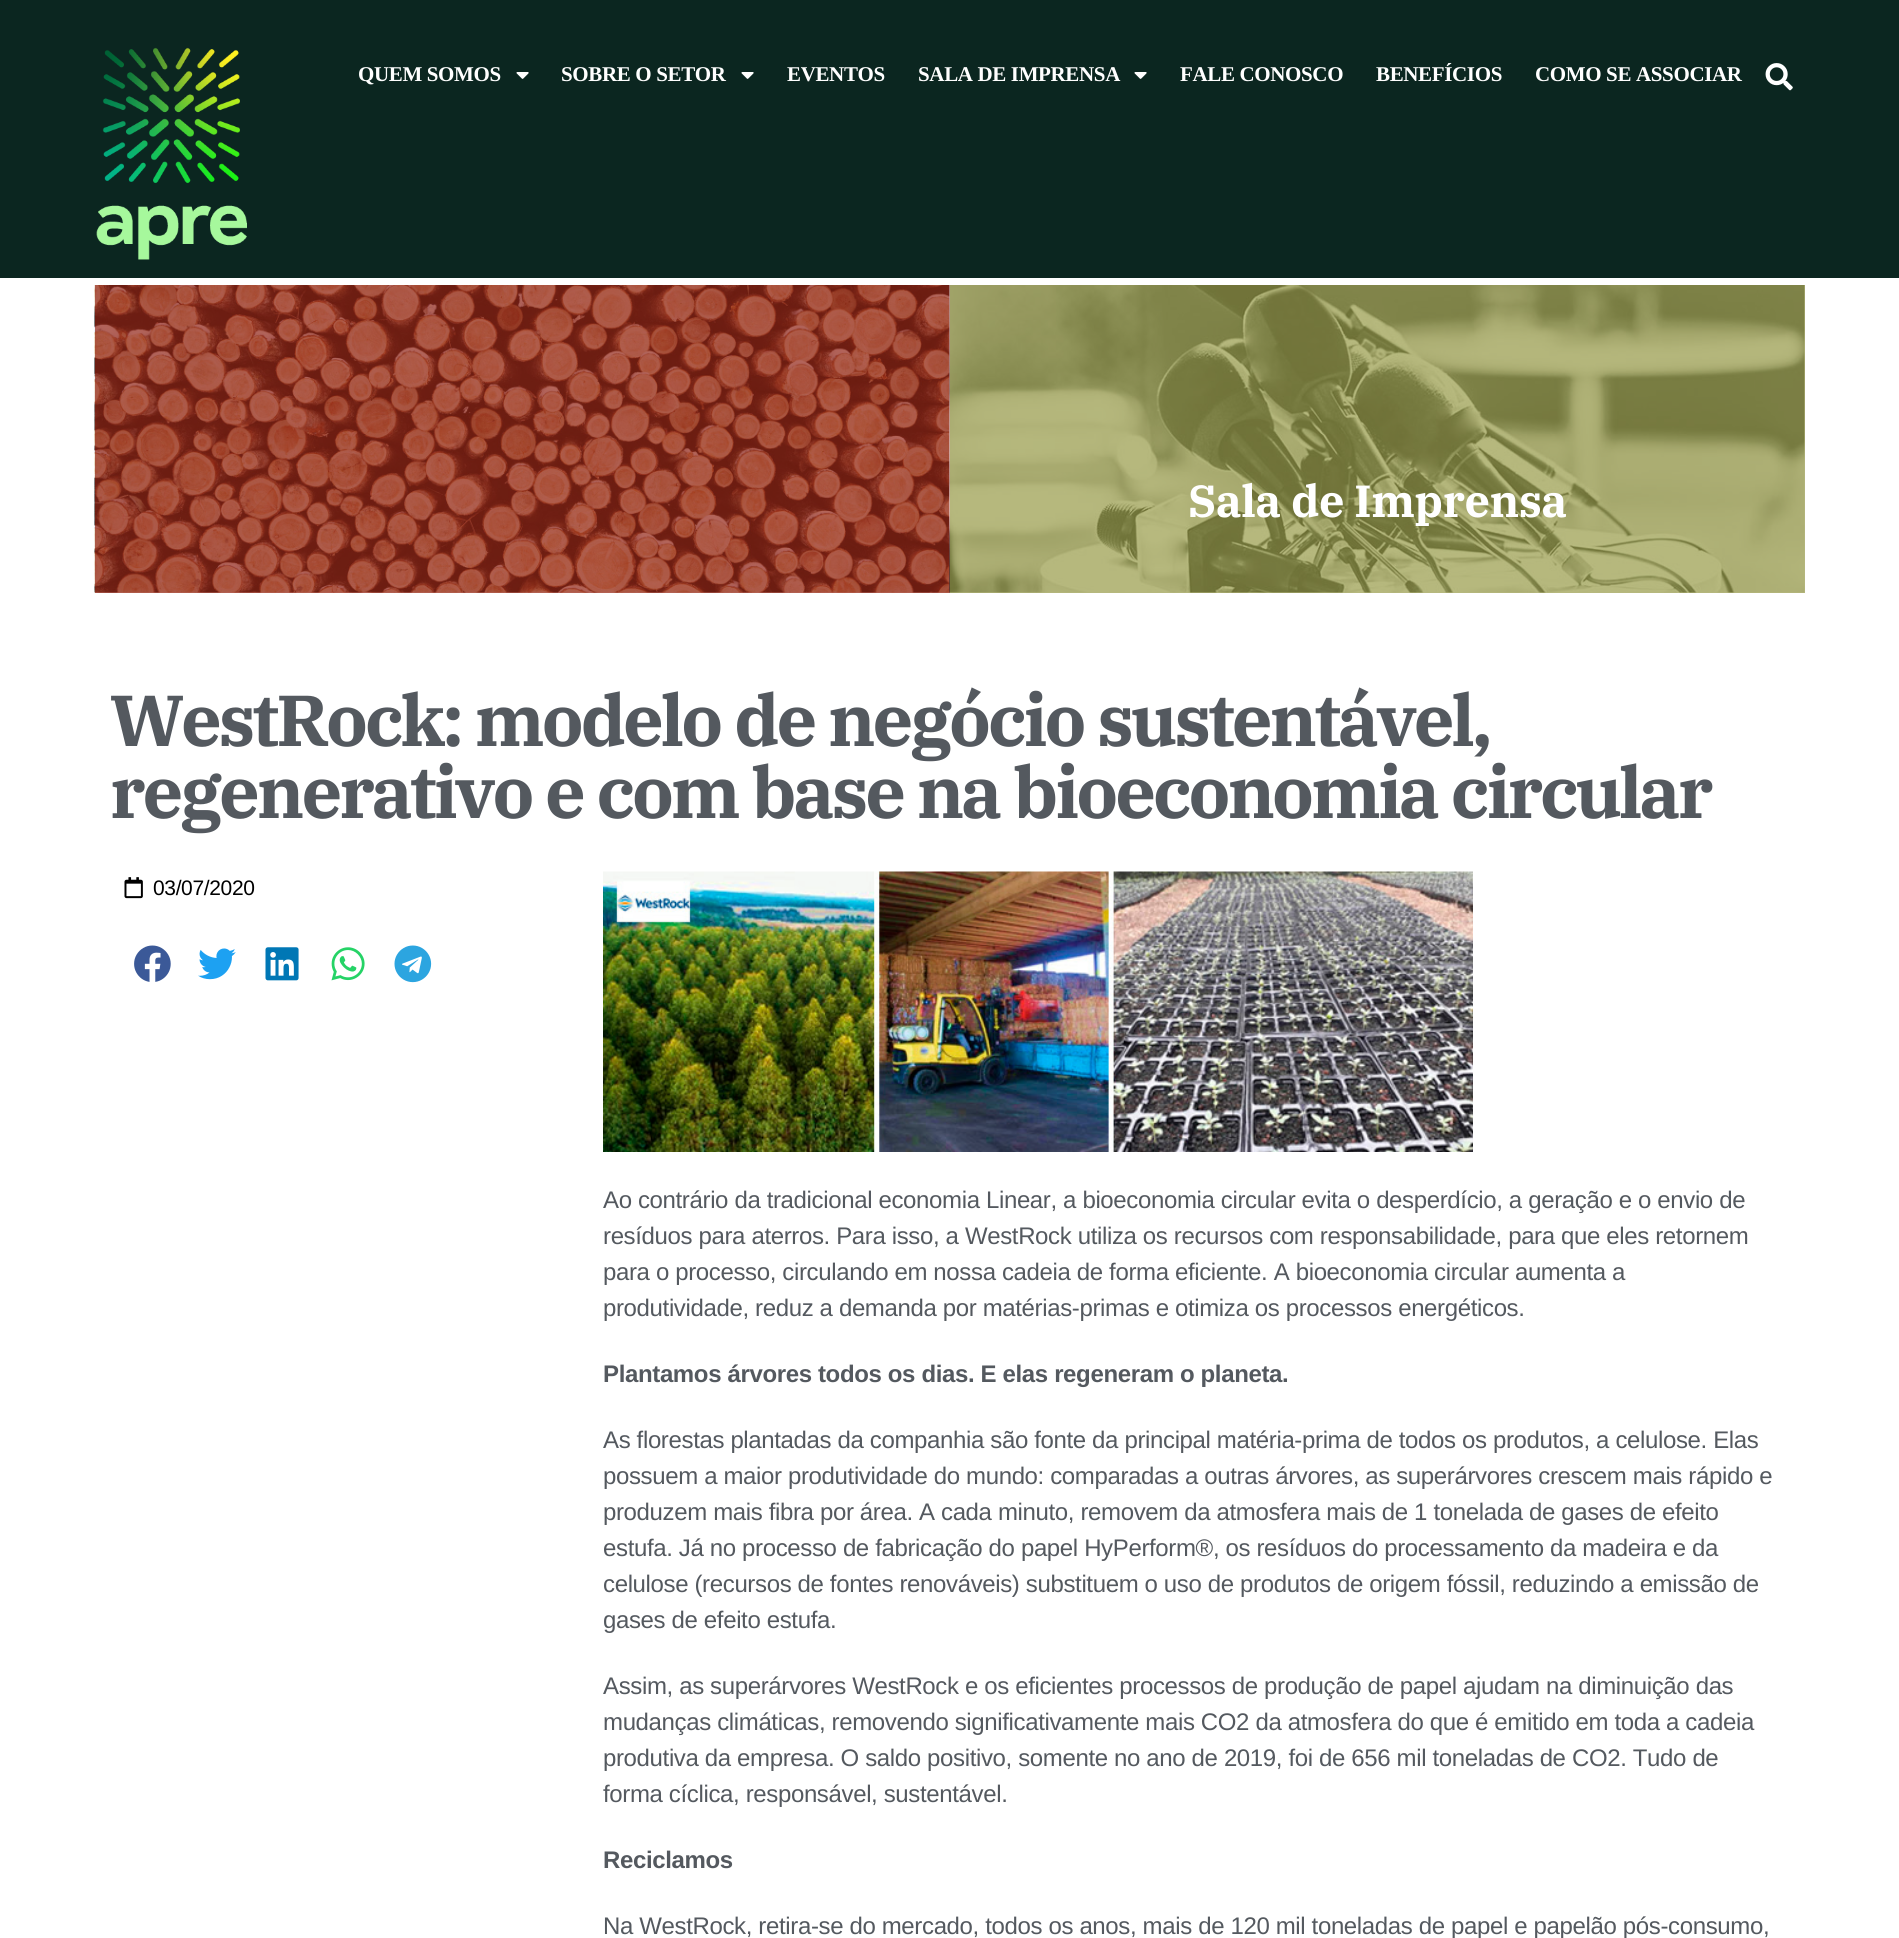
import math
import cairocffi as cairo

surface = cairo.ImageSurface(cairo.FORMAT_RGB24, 1899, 1938)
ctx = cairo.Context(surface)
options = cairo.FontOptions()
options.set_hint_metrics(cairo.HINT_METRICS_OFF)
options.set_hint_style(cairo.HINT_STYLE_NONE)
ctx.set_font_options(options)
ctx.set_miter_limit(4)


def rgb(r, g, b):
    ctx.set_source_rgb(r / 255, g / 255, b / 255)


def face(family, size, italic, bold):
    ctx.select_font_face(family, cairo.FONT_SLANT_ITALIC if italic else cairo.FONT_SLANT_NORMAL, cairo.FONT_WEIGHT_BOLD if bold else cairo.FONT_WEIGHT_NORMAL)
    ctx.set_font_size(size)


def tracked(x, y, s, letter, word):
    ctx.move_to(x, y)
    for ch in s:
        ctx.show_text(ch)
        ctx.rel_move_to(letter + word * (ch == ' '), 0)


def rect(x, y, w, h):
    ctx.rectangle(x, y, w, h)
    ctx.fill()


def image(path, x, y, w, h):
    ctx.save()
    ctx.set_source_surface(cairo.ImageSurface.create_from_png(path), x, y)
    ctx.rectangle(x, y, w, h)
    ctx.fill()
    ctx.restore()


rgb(255, 255, 255)
ctx.paint()
rgb(183, 185, 126)
rect(950, 285, 855, 308)
rgb(182, 102, 91)
rect(95, 285, 855, 308)
rgb(11, 38, 32)
rect(0, 0, 1899, 278)
image('image0.png', 96, 47, 151, 213)
face('Liberation Serif', 21, 0, 1)
rgb(255, 255, 255)
tracked(358, 81, 'QUEM SOMOS', -0.36, 0)
image('image1.png', 516, 72, 13, 7)
tracked(561, 81, 'SOBRE O SETOR', -0.36, 0)
image('image1.png', 741, 72, 13, 7)
tracked(787, 81, 'EVENTOS', -0.36, 0)
tracked(918, 81, 'SALA DE IMPRENSA', -0.36, 0)
image('image1.png', 1134, 72, 13, 7)
tracked(1180, 81, 'FALE CONOSCO', -0.36, 0)
tracked(1376, 81, 'BENEFÍCIOS', -0.36, 0)
tracked(1535, 81, 'COMO SE ASSOCIAR', -0.36, 0)
image('image2.png', 1765, 63, 28, 28)
image('image3.png', 94, 285, 856, 308)
image('image4.png', 949, 285, 856, 308)
face('IBM Plex Serif', 45, 0, 1)
tracked(1188, 517, 'Sala de Imprensa', -0.36, 0)
face('IBM Plex Serif', 72, 0, 1)
rgb(84, 89, 95)
tracked(110, 746, 'WestRock: modelo de negócio sustentável,', -3, 0)
tracked(110, 818, 'regenerativo e com base na bioeconomia circular', -3, 0)
image('image5.png', 124, 877, 19, 22)
face('Liberation Sans', 21, 0, 0)
rgb(0, 0, 0)
tracked(153, 895, '03/07/2020', -0.36, 0)
image('image6.png', 134, 945, 37, 37)
image('image7.png', 198, 948, 38, 32)
image('image8.png', 265, 947, 34, 34)
image('image9.png', 331, 947, 34, 34)
image('image10.png', 394, 945, 38, 38)
image('image11.png', 603, 871, 870, 281)
face('Liberation Sans', 24, 0, 0)
rgb(84, 89, 95)
tracked(603, 1208, 'Ao contrário da tradicional economia Linear, a bioeconomia circular evita o desperdício, a geração e o envio de', -0.36, 0)
tracked(603, 1244, 'resíduos para aterros. Para isso, a WestRock utiliza os recursos com responsabilidade, para que eles retornem', -0.36, 0)
tracked(603, 1280, 'para o processo, circulando em nossa cadeia de forma eficiente. A bioeconomia circular aumenta a', -0.36, 0)
tracked(603, 1316, 'produtividade, reduz a demanda por matérias-primas e otimiza os processos energéticos.', -0.36, 0)
face('Liberation Sans', 24, 0, 1)
tracked(603, 1382, 'Plantamos árvores todos os dias. E elas regeneram o planeta.', -0.36, 0)
face('Liberation Sans', 24, 0, 0)
tracked(603, 1448, 'As florestas plantadas da companhia são fonte da principal matéria-prima de todos os produtos, a celulose. Elas', -0.36, 0)
tracked(603, 1484, 'possuem a maior produtividade do mundo: comparadas a outras árvores, as superárvores crescem mais rápido e', -0.36, 0)
tracked(603, 1520, 'produzem mais fibra por área. A cada minuto, removem da atmosfera mais de 1 tonelada de gases de efeito', -0.36, 0)
tracked(603, 1556, 'estufa. Já no processo de fabricação do papel HyPerform®, os resíduos do processamento da madeira e da', -0.36, 0)
tracked(603, 1592, 'celulose (recursos de fontes renováveis) substituem o uso de produtos de origem fóssil, reduzindo a emissão de', -0.36, 0)
tracked(603, 1628, 'gases de efeito estufa.', -0.36, 0)
tracked(603, 1694, 'Assim, as superárvores WestRock e os eficientes processos de produção de papel ajudam na diminuição das', -0.36, 0)
tracked(603, 1730, 'mudanças climáticas, removendo significativamente mais CO2 da atmosfera do que é emitido em toda a cadeia', -0.36, 0)
tracked(603, 1766, 'produtiva da empresa. O saldo positivo, somente no ano de 2019, foi de 656 mil toneladas de CO2. Tudo de', -0.36, 0)
tracked(603, 1802, 'forma cíclica, responsável, sustentável.', -0.36, 0)
face('Liberation Sans', 24, 0, 1)
tracked(603, 1868, 'Reciclamos', -0.36, 0)
face('Liberation Sans', 24, 0, 0)
tracked(603, 1934, 'Na WestRock, retira-se do mercado, todos os anos, mais de 120 mil toneladas de papel e papelão pós-consumo,', -0.36, 0)
surface.write_to_png('render.png')
